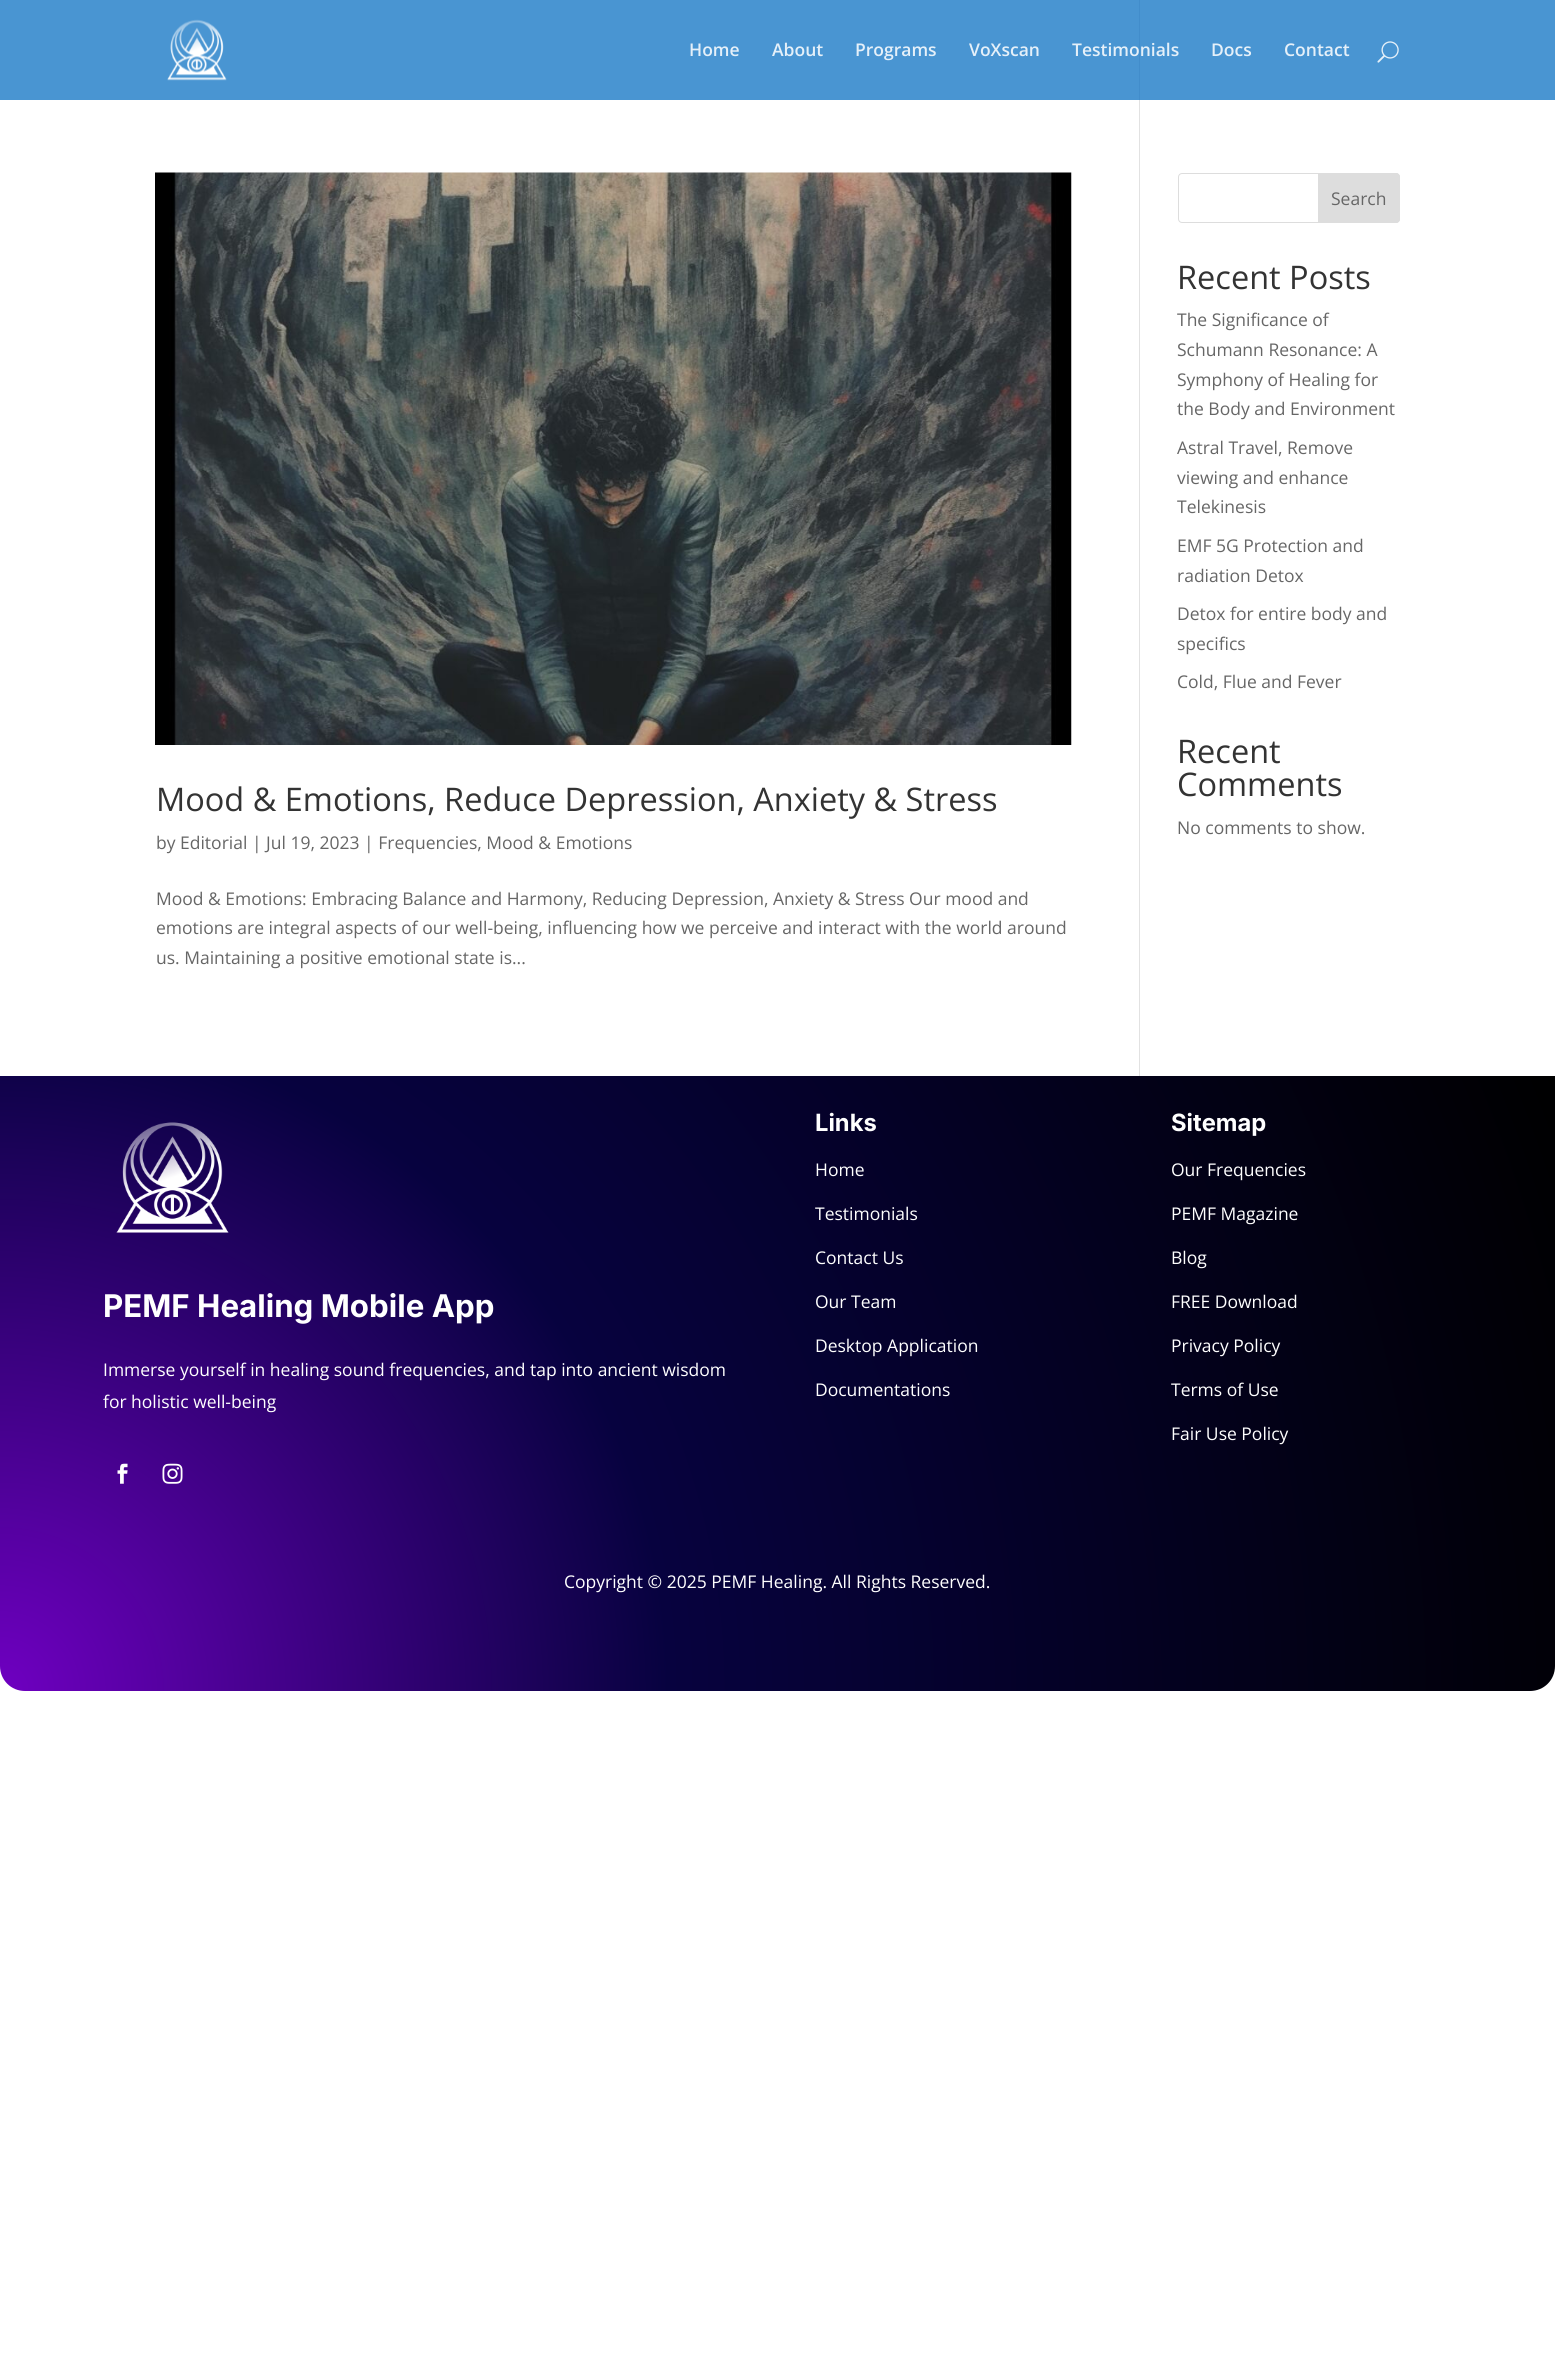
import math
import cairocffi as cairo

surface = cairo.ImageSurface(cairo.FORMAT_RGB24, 1555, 2354)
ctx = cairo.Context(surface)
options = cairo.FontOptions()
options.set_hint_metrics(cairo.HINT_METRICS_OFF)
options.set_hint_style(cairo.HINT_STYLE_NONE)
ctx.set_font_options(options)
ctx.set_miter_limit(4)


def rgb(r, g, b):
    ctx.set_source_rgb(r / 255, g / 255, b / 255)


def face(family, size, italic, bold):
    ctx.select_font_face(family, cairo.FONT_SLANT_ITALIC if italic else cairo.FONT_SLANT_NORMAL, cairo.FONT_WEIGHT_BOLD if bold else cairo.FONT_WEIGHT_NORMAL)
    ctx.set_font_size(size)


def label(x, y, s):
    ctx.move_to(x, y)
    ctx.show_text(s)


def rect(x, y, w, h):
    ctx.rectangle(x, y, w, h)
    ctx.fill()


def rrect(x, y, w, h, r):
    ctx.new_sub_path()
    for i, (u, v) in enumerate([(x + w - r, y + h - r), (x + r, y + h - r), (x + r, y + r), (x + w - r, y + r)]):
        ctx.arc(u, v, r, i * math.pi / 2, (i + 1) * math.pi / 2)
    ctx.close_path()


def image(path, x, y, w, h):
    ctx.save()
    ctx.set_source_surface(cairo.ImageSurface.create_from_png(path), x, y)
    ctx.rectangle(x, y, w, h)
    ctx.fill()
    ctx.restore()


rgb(255, 255, 255)
ctx.paint()
rgb(73, 149, 210)
rect(0, 0, 1555, 100)
image('image0.png', 167, 19, 60, 62)
face('Open Sans SemiBold', 17.5, 0, 0)
rgb(229, 240, 249)
label(689, 56, 'Home')
label(772, 56, 'About')
label(855, 56, 'Programs')
label(969, 56, 'VoXscan')
rgb(66, 141, 203)
rect(1139, 0, 1, 100)
rgb(229, 240, 249)
label(1072, 56, 'Testimonials')
label(1211, 56, 'Docs')
label(1284, 56, 'Contact')
image('image1.png', 1377, 41, 22, 22)
rgb(226, 226, 226)
rect(1139, 100, 1, 976)
rrect(1178.5, 173.5, 221, 49, 3.5)
rgb(221, 221, 221)
ctx.set_line_width(1)
ctx.stroke()
ctx.new_path()
ctx.move_to(1318.5, 173.5)
ctx.line_to(1396, 173.5)
ctx.curve_to(1398, 173.5, 1399.5, 175, 1399.5, 177)
ctx.line_to(1399.5, 219)
ctx.curve_to(1399.5, 221, 1398, 222.5, 1396, 222.5)
ctx.line_to(1318.5, 222.5)
ctx.close_path()
ctx.fill_preserve()
ctx.stroke()
face('Open Sans', 17.5, 0, 0)
rgb(102, 102, 102)
label(1331, 205, 'Search')
face('Open Sans', 32.5, 0, 0)
rgb(51, 51, 51)
label(1177, 289, 'Recent Posts')
face('Open Sans', 17.5, 0, 0)
rgb(102, 102, 102)
label(1177, 326, 'The Significance of')
label(1177, 356, 'Schumann Resonance: A')
label(1177, 386, 'Symphony of Healing for')
label(1177, 415, 'the Body and Environment')
label(1177, 454, 'Astral Travel, Remove')
label(1177, 484, 'viewing and enhance')
label(1177, 513, 'Telekinesis')
label(1177, 552, 'EMF 5G Protection and')
label(1177, 582, 'radiation Detox')
label(1177, 620, 'Detox for entire body and')
label(1177, 650, 'specifics')
label(1177, 688, 'Cold, Flue and Fever')
face('Open Sans', 32.5, 0, 0)
rgb(51, 51, 51)
label(1177, 763, 'Recent')
label(1177, 796, 'Comments')
face('Open Sans', 17.5, 0, 0)
rgb(102, 102, 102)
label(1177, 834, 'No comments to show.')
image('image2.png', 155, 172, 917, 573)
face('Open Sans', 32.5, 0, 0)
rgb(51, 51, 51)
label(156, 811, 'Mood & Emotions, Reduce Depression, Anxiety & Stress')
face('Open Sans', 17.5, 0, 0)
rgb(102, 102, 102)
label(156, 849, 'by Editorial | Jul 19, 2023 | Frequencies, Mood & Emotions')
label(156, 905, 'Mood & Emotions: Embracing Balance and Harmony, Reducing Depression, Anxiety & Stress Our mood and')
label(156, 934, 'emotions are integral aspects of our well-being, influencing how we perceive and interact with the world around')
label(156, 964, 'us. Maintaining a positive emotional state is...')
gradient = cairo.RadialGradient(0, 1691, 0, 0, 1691, 1672)
gradient.add_color_stop_rgba(0, 0.435, 0, 0.757, 1)
gradient.add_color_stop_rgba(0.4, 0.027, 0.008, 0.247, 1)
gradient.add_color_stop_rgba(1, 0, 0, 0, 1)
ctx.set_source(gradient)
ctx.new_path()
ctx.move_to(0, 1076)
ctx.line_to(1555, 1076)
ctx.line_to(1555, 1666)
ctx.curve_to(1555, 1680, 1544, 1691, 1530, 1691)
ctx.line_to(25, 1691)
ctx.curve_to(11, 1691, 0, 1680, 0, 1666)
ctx.close_path()
ctx.fill()
image('image3.png', 116, 1122, 113, 111)
face('Inter', 31.25, 0, 1)
rgb(255, 255, 255)
label(103, 1317, 'PEMF Healing Mobile App')
face('Open Sans', 17.5, 0, 0)
label(103, 1376, 'Immerse yourself in healing sound frequencies, and tap into ancient wisdom')
label(103, 1408, 'for holistic well-being')
image('image4.png', 117, 1463, 11, 21)
image('image5.png', 162, 1463, 21, 21)
face('Inter', 23.75, 0, 1)
label(815, 1131, 'Links')
face('Open Sans', 17.5, 0, 0)
label(815, 1176, 'Home')
label(815, 1220, 'Testimonials')
label(815, 1264, 'Contact Us')
label(815, 1308, 'Our Team')
label(815, 1352, 'Desktop Application')
label(815, 1396, 'Documentations')
face('Inter', 23.75, 0, 1)
label(1171, 1131, 'Sitemap')
face('Open Sans', 17.5, 0, 0)
label(1171, 1176, 'Our Frequencies')
label(1171, 1220, 'PEMF Magazine')
label(1171, 1264, 'Blog')
label(1171, 1308, 'FREE Download')
label(1171, 1352, 'Privacy Policy')
label(1171, 1396, 'Terms of Use')
label(1171, 1440, 'Fair Use Policy')
label(564, 1588, 'Copyright © 2025 PEMF Healing. All Rights Reserved.')
surface.write_to_png('render.png')
